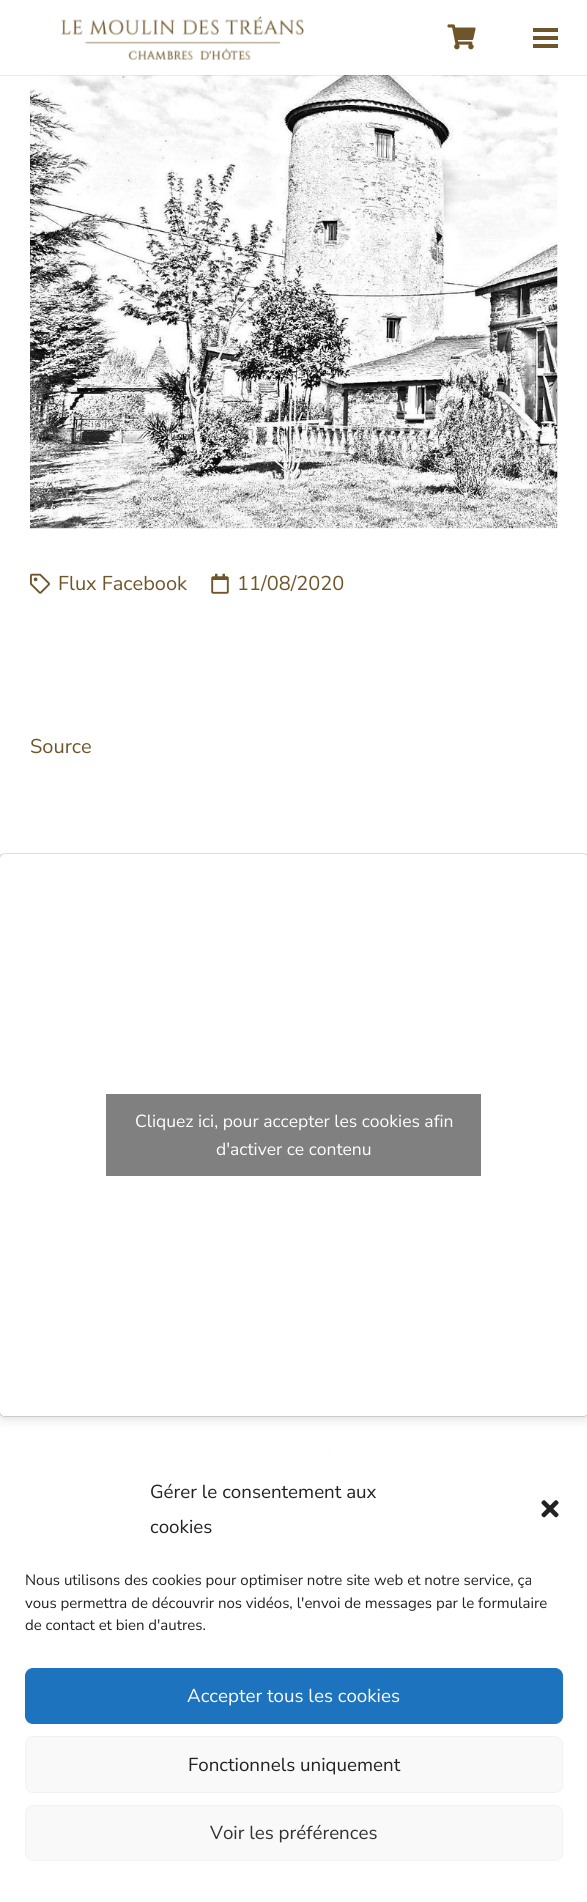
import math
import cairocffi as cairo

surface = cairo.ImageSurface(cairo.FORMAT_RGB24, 587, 1902)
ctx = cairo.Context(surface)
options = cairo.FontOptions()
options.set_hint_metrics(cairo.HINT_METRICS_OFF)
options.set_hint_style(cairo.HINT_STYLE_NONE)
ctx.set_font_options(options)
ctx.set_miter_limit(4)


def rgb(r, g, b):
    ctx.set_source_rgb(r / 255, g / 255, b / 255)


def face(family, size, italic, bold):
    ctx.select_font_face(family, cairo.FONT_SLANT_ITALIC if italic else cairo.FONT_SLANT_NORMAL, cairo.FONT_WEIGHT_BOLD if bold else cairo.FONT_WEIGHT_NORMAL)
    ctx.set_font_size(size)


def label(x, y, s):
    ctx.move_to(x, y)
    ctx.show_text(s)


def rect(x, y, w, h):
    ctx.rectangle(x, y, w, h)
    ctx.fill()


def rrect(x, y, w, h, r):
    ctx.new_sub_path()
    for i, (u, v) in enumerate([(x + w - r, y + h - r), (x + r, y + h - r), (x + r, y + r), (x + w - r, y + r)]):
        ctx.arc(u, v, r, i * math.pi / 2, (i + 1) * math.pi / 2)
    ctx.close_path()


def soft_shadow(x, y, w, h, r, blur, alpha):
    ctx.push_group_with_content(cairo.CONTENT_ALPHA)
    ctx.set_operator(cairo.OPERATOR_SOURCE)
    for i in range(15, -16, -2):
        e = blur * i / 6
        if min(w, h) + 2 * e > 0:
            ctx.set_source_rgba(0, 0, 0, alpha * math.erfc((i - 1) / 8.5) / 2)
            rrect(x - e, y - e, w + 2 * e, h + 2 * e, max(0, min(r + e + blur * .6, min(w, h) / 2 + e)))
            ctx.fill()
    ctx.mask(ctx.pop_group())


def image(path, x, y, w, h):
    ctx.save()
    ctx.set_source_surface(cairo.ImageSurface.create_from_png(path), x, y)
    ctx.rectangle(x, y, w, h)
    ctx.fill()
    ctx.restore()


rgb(255, 255, 255)
ctx.paint()
image('image2.png', 30, 75, 528, 454)
ctx.set_source_rgba(0, 0, 0, 0.08)
ctx.new_path()
ctx.move_to(0, 75)
ctx.line_to(0, 76)
ctx.line_to(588, 76)
ctx.line_to(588, 1)
ctx.line_to(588, 75)
ctx.close_path()
ctx.fill()
image('image0.png', 61, 16, 243, 44)
image('image1.png', 447, 24, 29, 26)
rgb(110, 86, 42)
rect(533, 36, 25, 4)
rect(533, 28, 25, 4)
rect(533, 44, 25, 4)
image('image3.png', 30, 573, 20, 21)
face('Nunito Sans', 20, 0, 0)
label(58, 590, 'Flux Facebook')
image('image4.png', 211, 573, 18, 21)
label(237, 590, '11/08/2020')
label(30, 753, 'Source')
ctx.save()
ctx.rectangle(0, 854, 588, 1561)
ctx.clip()
rgb(0, 0, 0)
soft_shadow(0, 855, 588, 563, 4, 6, 0.15)
ctx.restore()
rgb(0, 0, 0)
soft_shadow(0, 854, 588, 562, 4, 0.5, 0.5)
rgb(255, 255, 255)
rrect(0, 854, 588, 562, 4)
ctx.fill()
rgb(128, 128, 128)
rect(106, 1094, 375, 82)
face('Nunito Sans', 17.5, 0, 0)
rgb(255, 255, 255)
label(135, 1127, 'Cliquez ici, pour accepter les cookies afin')
label(216, 1155, 'd\'activer ce contenu')
image('image5.png', 328, 1454, 2, 1)
face('Nunito Sans', 18.75, 0, 0)
rgb(34, 34, 34)
label(150, 1498, 'Gérer le consentement aux')
label(150, 1533, 'cookies')
image('image6.png', 541, 1500, 18, 18)
face('Nunito Sans', 15, 0, 0)
label(25, 1585, 'Nous utilisons des cookies pour optimiser notre site web et notre service, ça')
label(25, 1608, 'vous permettra de découvrir nos vidéos, l\'envoi de messages par le formulaire')
label(25, 1630, 'de contact et bien d\'autres.')
rgb(30, 115, 190)
rrect(25.5, 1668.5, 537, 55, 7.5)
ctx.fill_preserve()
ctx.set_line_width(1)
ctx.stroke()
face('Nunito Sans', 18.75, 0, 0)
rgb(255, 255, 255)
label(187, 1702, 'Accepter tous les cookies')
rgb(249, 249, 249)
rrect(25.5, 1736.5, 537, 56, 7.5)
ctx.fill_preserve()
rgb(242, 242, 242)
ctx.stroke()
rgb(34, 34, 34)
label(188, 1771, 'Fonctionnels uniquement')
rgb(249, 249, 249)
rrect(25.5, 1805.5, 537, 55, 7.5)
ctx.fill_preserve()
rgb(242, 242, 242)
ctx.stroke()
rgb(51, 51, 51)
label(210, 1839, 'Voir les préférences')
surface.write_to_png('render.png')
